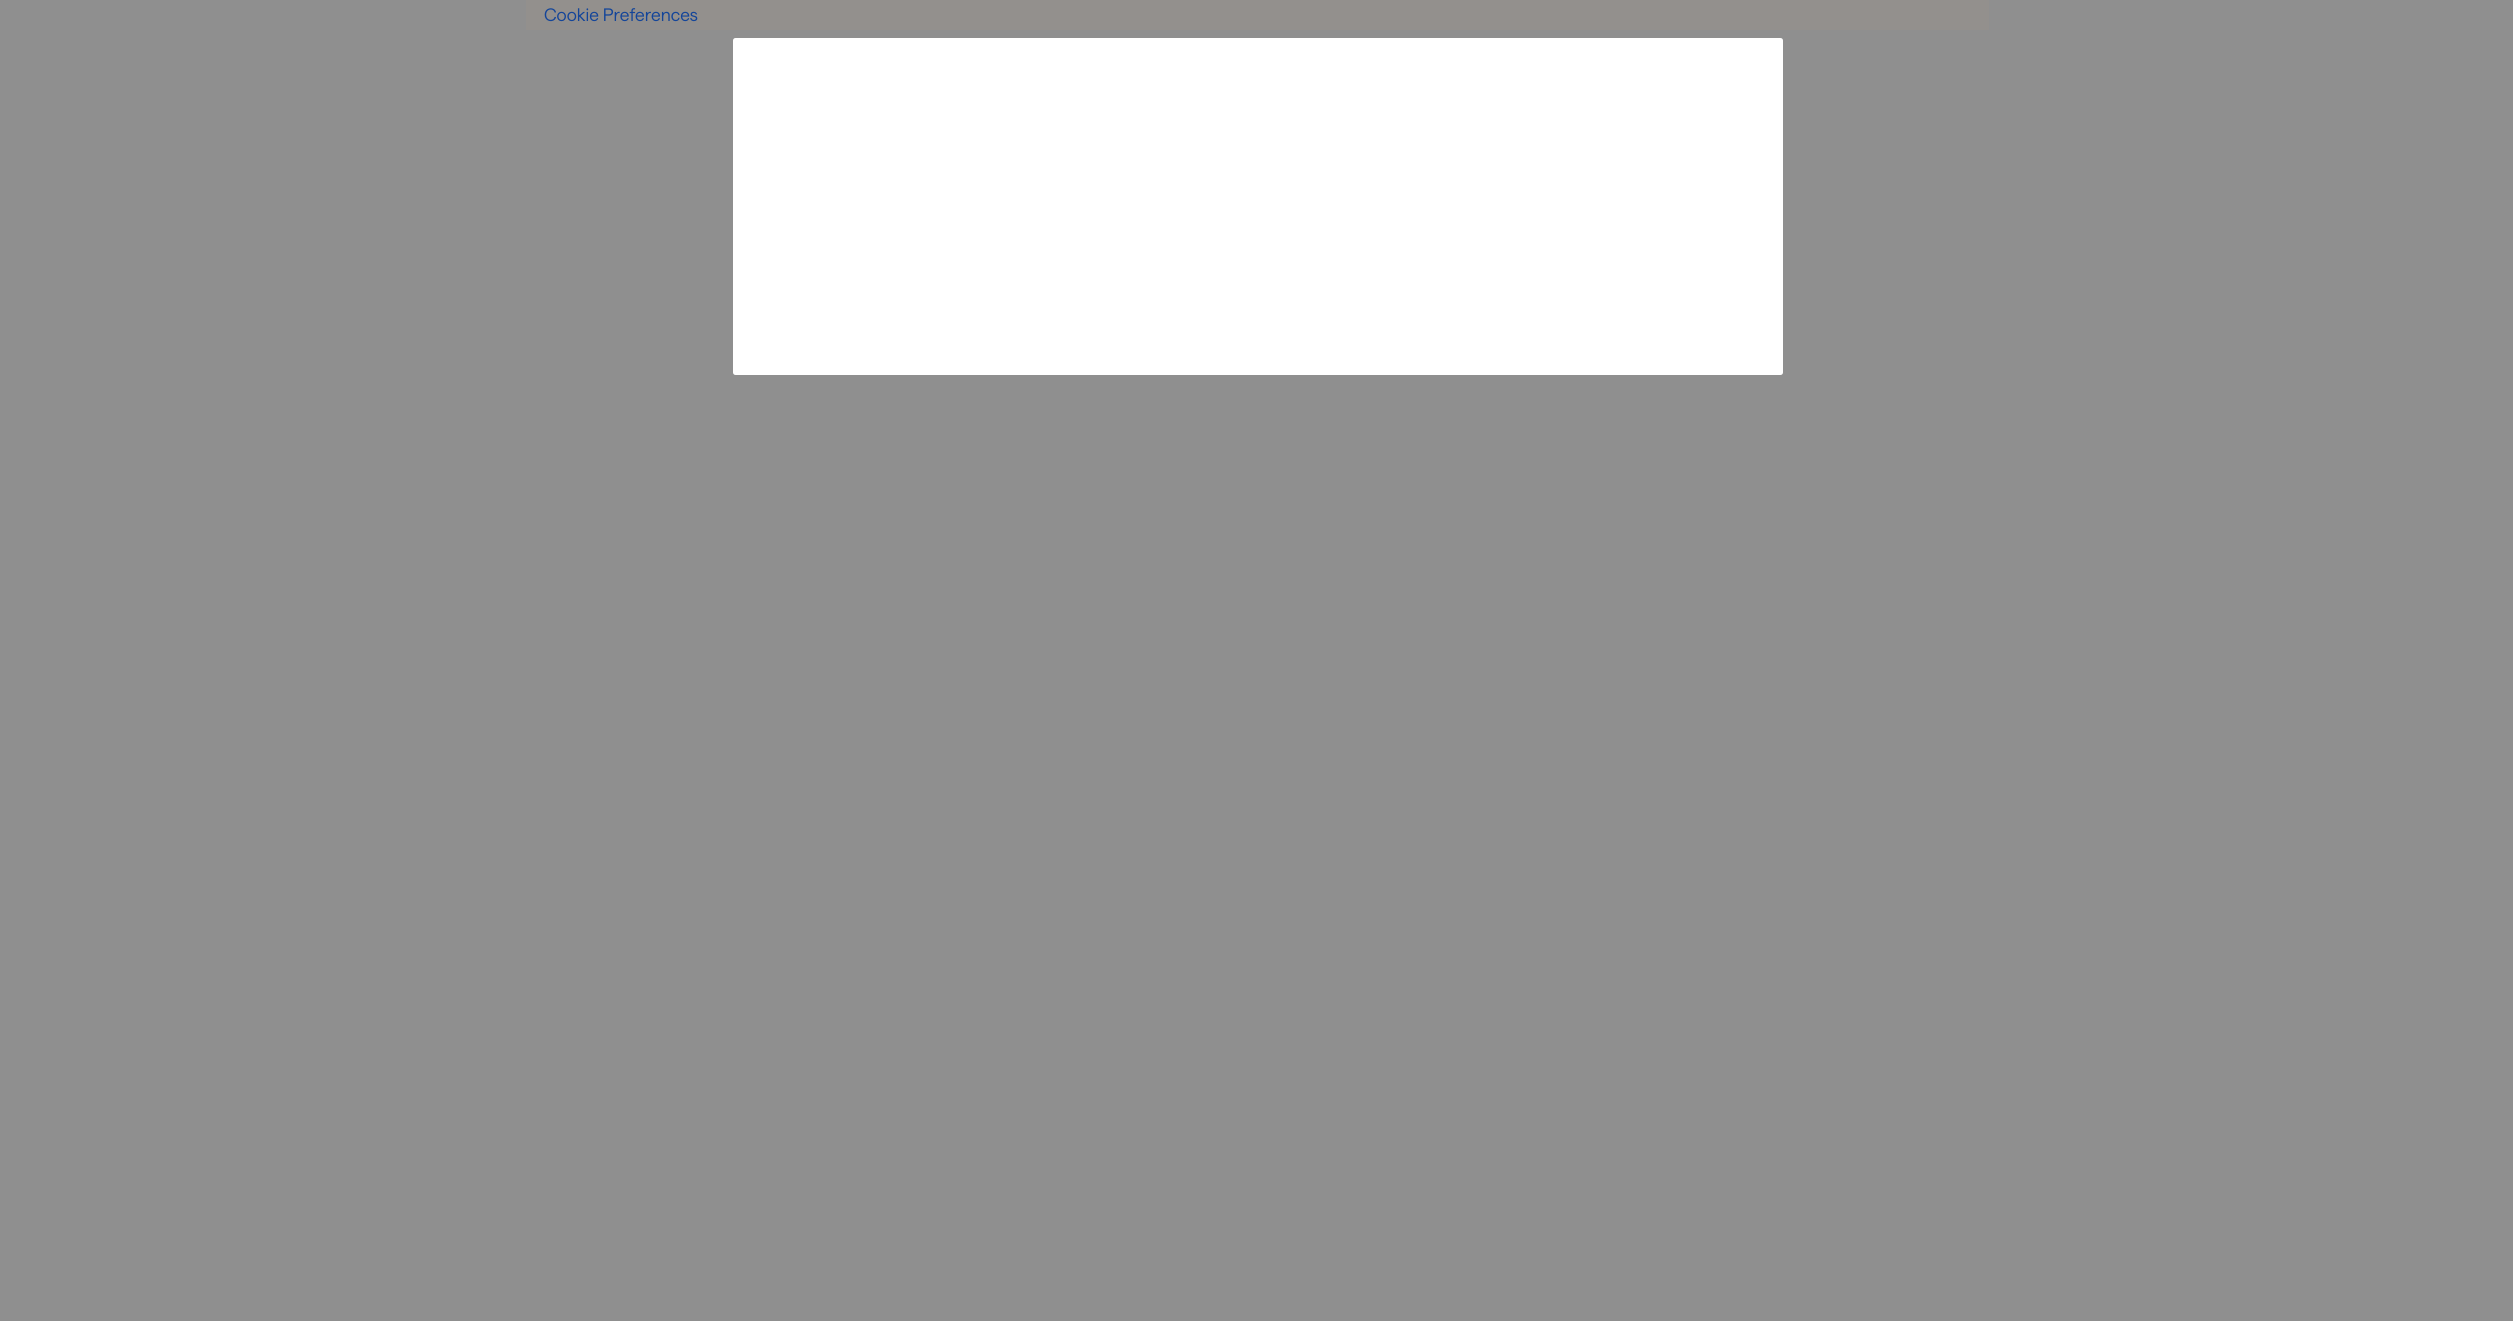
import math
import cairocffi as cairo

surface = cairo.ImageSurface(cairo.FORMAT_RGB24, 2513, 1321)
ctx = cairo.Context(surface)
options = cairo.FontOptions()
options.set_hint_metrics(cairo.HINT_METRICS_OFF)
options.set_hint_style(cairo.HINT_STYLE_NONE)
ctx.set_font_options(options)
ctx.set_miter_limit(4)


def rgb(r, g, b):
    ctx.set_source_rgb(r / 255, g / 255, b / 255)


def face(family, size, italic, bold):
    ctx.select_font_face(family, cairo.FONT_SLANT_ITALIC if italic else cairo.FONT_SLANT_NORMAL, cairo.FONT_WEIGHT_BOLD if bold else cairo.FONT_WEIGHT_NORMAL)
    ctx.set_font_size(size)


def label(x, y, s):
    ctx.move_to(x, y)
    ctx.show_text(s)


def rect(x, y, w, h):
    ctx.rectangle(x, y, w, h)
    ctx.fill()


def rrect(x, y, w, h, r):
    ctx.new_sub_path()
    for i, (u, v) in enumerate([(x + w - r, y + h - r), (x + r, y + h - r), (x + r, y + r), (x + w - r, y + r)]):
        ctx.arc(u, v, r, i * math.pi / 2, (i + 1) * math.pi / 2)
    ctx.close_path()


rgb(143, 143, 143)
ctx.paint()
rgb(147, 144, 141)
rect(526, 0, 1463, 30)
face('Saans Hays', 17.5, 0, 0)
rgb(20, 69, 153)
label(544, 21, 'Cookie Preferences')
rgb(255, 255, 255)
rrect(733, 38, 1050, 337, 2.5)
ctx.fill()
surface.write_to_png('render.png')
